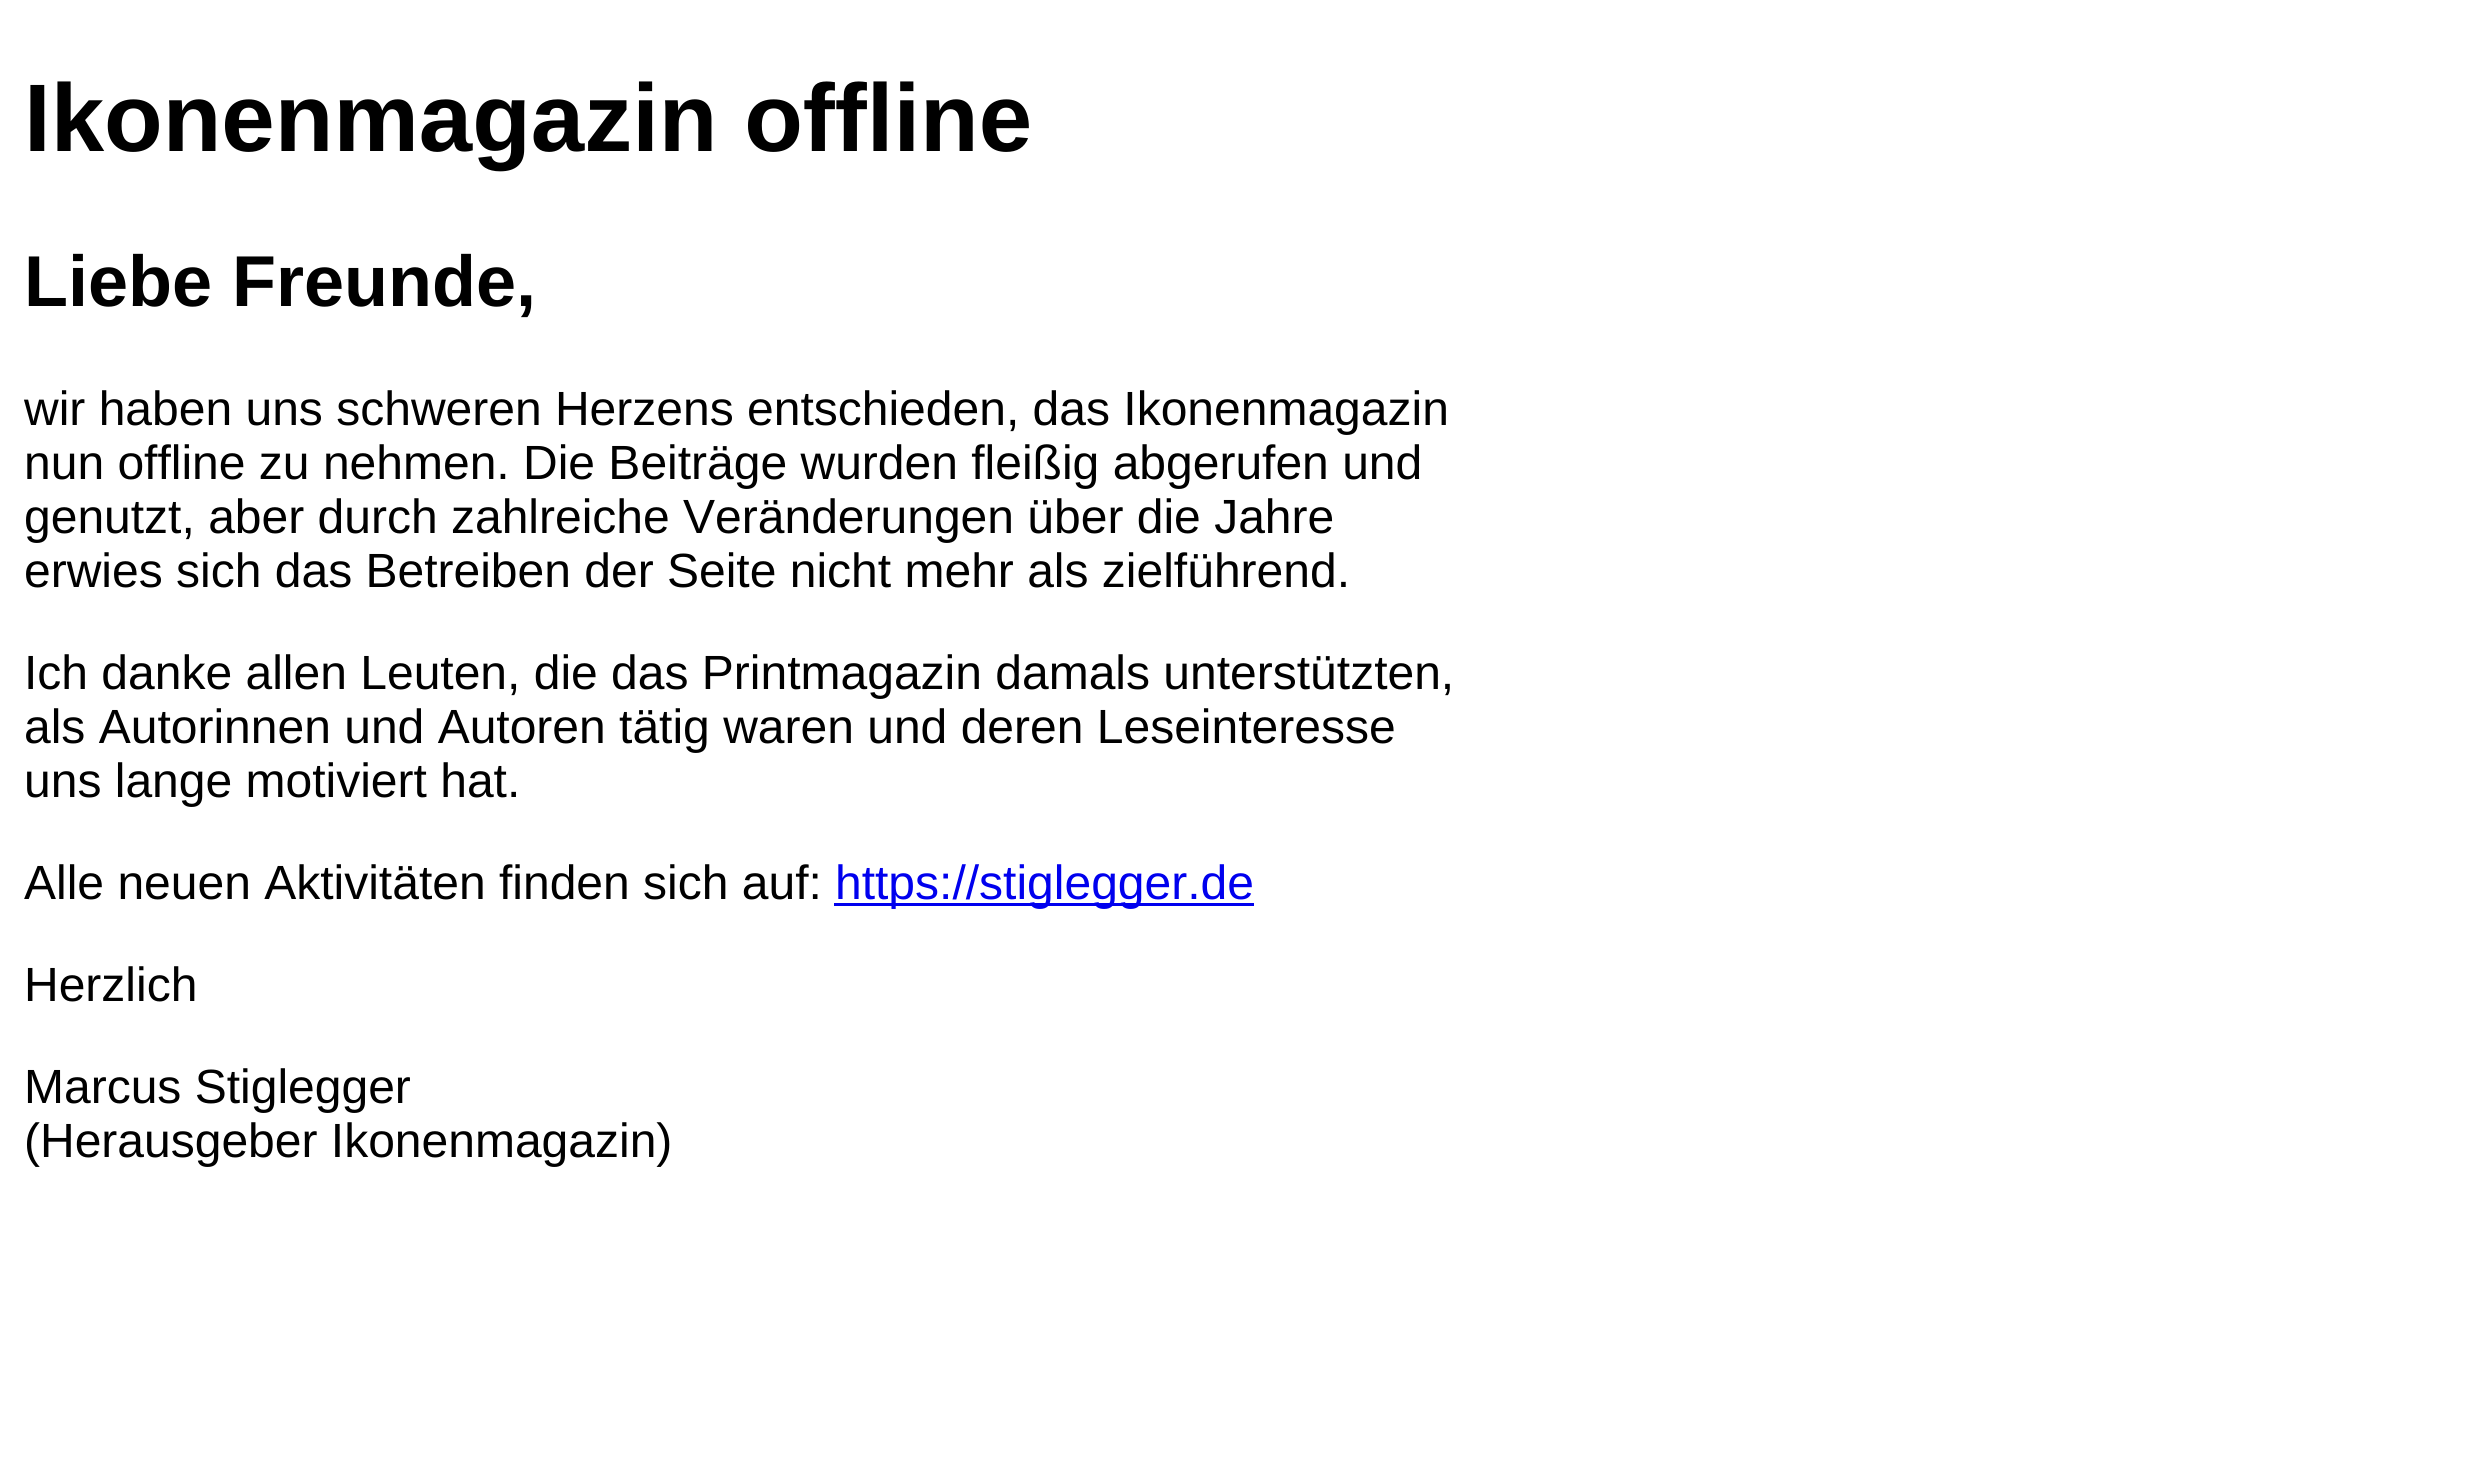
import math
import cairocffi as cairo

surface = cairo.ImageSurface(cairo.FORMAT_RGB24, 2470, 1479)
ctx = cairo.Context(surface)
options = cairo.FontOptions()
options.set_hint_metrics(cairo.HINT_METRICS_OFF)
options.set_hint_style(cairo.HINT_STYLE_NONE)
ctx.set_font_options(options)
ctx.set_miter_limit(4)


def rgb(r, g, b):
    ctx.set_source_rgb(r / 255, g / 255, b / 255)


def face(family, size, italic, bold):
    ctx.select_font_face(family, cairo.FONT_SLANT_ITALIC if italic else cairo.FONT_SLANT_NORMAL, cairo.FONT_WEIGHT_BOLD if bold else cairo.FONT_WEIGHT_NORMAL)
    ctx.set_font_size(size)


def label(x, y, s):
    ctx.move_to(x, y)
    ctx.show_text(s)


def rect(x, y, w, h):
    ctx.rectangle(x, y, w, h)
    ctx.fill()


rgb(255, 255, 255)
ctx.paint()
face('Liberation Sans', 96, 0, 1)
rgb(0, 0, 0)
label(24, 151, 'Ikonenmagazin offline')
face('Liberation Sans', 72, 0, 1)
label(24, 306, 'Liebe Freunde,')
face('Liberation Sans', 48, 0, 0)
label(24, 425, 'wir haben uns schweren Herzens entschieden, das Ikonenmagazin')
label(24, 479, 'nun offline zu nehmen. Die Beiträge wurden fleißig abgerufen und')
label(24, 533, 'genutzt, aber durch zahlreiche Veränderungen über die Jahre')
label(24, 587, 'erwies sich das Betreiben der Seite nicht mehr als zielführend.')
label(24, 689, 'Ich danke allen Leuten, die das Printmagazin damals unterstützten,')
label(24, 743, 'als Autorinnen und Autoren tätig waren und deren Leseinteresse')
label(24, 797, 'uns lange motiviert hat.')
label(24, 899, 'Alle neuen Aktivitäten finden sich auf:')
rgb(0, 0, 238)
rect(834, 903, 420, 3)
label(835, 899, 'https://stiglegger.de')
rgb(0, 0, 0)
label(24, 1001, 'Herzlich')
label(24, 1103, 'Marcus Stiglegger')
label(24, 1157, '(Herausgeber Ikonenmagazin)')
surface.write_to_png('render.png')
